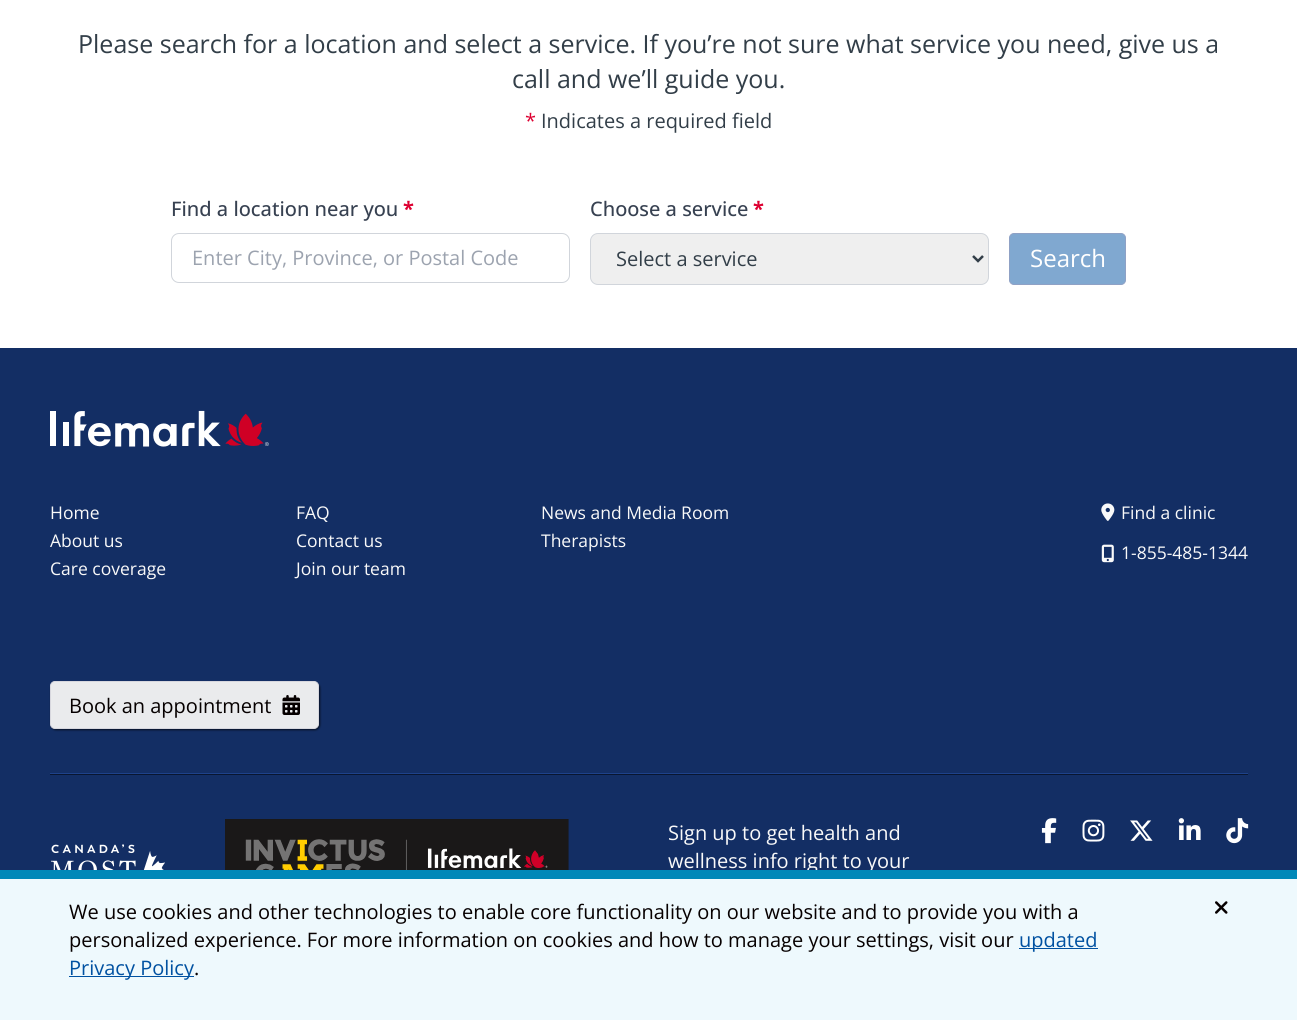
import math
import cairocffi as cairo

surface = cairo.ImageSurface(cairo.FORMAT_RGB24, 1297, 1020)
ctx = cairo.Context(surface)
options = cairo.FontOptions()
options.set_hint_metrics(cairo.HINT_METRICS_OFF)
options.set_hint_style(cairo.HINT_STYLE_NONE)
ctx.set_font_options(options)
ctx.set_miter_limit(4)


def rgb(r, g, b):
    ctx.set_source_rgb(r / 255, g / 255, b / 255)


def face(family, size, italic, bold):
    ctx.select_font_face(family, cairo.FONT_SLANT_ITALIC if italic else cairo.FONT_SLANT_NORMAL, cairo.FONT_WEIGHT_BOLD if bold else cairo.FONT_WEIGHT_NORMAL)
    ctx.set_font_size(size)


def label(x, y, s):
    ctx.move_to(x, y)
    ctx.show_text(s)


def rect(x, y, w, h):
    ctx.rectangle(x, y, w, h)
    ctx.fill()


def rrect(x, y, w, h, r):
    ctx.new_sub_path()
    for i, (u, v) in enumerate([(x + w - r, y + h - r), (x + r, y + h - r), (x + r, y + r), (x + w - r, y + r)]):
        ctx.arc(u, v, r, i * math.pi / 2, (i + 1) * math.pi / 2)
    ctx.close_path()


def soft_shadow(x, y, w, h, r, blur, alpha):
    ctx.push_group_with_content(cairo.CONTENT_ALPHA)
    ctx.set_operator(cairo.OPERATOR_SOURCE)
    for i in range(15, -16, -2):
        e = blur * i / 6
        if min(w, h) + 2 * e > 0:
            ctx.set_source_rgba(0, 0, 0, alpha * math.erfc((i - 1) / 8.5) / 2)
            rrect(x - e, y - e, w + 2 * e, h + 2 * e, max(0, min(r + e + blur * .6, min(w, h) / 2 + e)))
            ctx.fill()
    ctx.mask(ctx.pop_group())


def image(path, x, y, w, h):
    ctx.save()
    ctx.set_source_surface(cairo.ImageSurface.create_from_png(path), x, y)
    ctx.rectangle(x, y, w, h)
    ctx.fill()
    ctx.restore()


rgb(255, 255, 255)
ctx.paint()
face('Open Sans', 25, 0, 0)
rgb(50, 62, 72)
label(78, 53, 'Please search for a location and select a service. If you’re not sure what service you need, give us a')
label(512, 88, 'call and we’ll guide you.')
face('Open Sans', 20, 0, 0)
rgb(221, 0, 49)
label(525, 128, '*')
rgb(50, 62, 72)
label(541, 128, 'Indicates a required field')
face('Open Sans Medium', 20, 0, 0)
rgb(55, 65, 81)
label(171, 216, 'Find a location near you')
face('Open Sans', 20, 0, 1)
rgb(221, 0, 49)
label(403, 216, '*')
rrect(171.5, 233.5, 398, 49, 7.5)
rgb(209, 213, 219)
ctx.set_line_width(1)
ctx.stroke()
face('Open Sans', 20, 0, 0)
rgb(156, 163, 175)
label(192, 265, 'Enter City, Province, or Postal Code')
face('Open Sans Medium', 20, 0, 0)
rgb(55, 65, 81)
label(590, 216, 'Choose a service')
face('Open Sans', 20, 0, 1)
rgb(221, 0, 49)
label(753, 216, '*')
rgb(239, 239, 239)
rrect(590.5, 233.5, 398, 51, 7.5)
ctx.fill_preserve()
rgb(209, 213, 219)
ctx.stroke()
ctx.new_path()
ctx.move_to(973, 256)
ctx.line_to(978, 261)
ctx.line_to(983, 256)
rgb(50, 62, 72)
ctx.set_line_width(2.5)
ctx.stroke()
face('Open Sans', 20, 0, 0)
label(616, 266, 'Select a service')
rgb(128, 168, 208)
rrect(1009.5, 233.5, 116, 51, 4.5)
ctx.fill_preserve()
rgb(143, 161, 197)
ctx.set_line_width(1)
ctx.stroke()
face('Open Sans', 24, 0, 0)
rgb(255, 255, 255)
label(1030, 267, 'Search')
rgb(19, 46, 100)
rect(0, 348, 1297, 522)
image('image0.png', 50, 410, 219, 37)
rgb(30, 66, 138)
rect(50, 773, 1198, 1)
face('Open Sans', 17.5, 0, 0)
rgb(249, 249, 249)
label(50, 519, 'Home')
label(296, 519, 'FAQ')
label(541, 519, 'News and Media Room')
label(50, 547, 'About us')
label(296, 547, 'Contact us')
label(541, 547, 'Therapists')
label(50, 575, 'Care coverage')
label(296, 575, 'Join our team')
image('image1.png', 1101, 503, 14, 18)
label(1121, 519, 'Find a clinic')
image('image2.png', 1101, 544, 13, 19)
label(1121, 559, '1-855-485-1344')
rgb(0, 0, 0)
soft_shadow(51, 683, 269, 47, 5, 1, 0.68)
rgb(234, 235, 237)
rrect(50.5, 681.5, 268, 47, 4.5)
ctx.fill_preserve()
rgb(215, 215, 222)
ctx.stroke()
face('Open Sans', 20, 0, 0)
rgb(6, 0, 0)
label(69, 713, 'Book an appointment')
image('image3.png', 282, 695, 18, 20)
rgb(9, 22, 48)
rect(50, 774, 1198, 1)
image('image4.png', 51, 844, 114, 26)
image('image5.png', 225, 819, 344, 51)
rgb(249, 249, 249)
label(668, 840, 'Sign up to get health and')
label(668, 868, 'wellness info right to your')
image('image6.png', 1041, 818, 16, 26)
image('image7.png', 1082, 819, 23, 23)
image('image8.png', 1130, 820, 23, 21)
image('image9.png', 1178, 818, 23, 22)
image('image10.png', 1226, 818, 23, 26)
rgb(238, 249, 253)
rect(0, 879, 1297, 141)
rgb(0, 136, 184)
rect(0, 870, 1297, 9)
rgb(6, 0, 0)
label(69, 919, 'We use cookies and other technologies to enable core functionality on our website and to provide you with a')
label(69, 947, 'personalized experience. For more information on cookies and how to manage your settings, visit our')
rgb(0, 81, 161)
rect(1019, 948, 79, 1)
label(1019, 947, 'updated')
rect(69, 976, 125, 1)
label(69, 975, 'Privacy Policy')
rgb(6, 0, 0)
label(194, 975, '.')
image('image11.png', 1215, 901, 13, 13)
surface.write_to_png('render.png')
